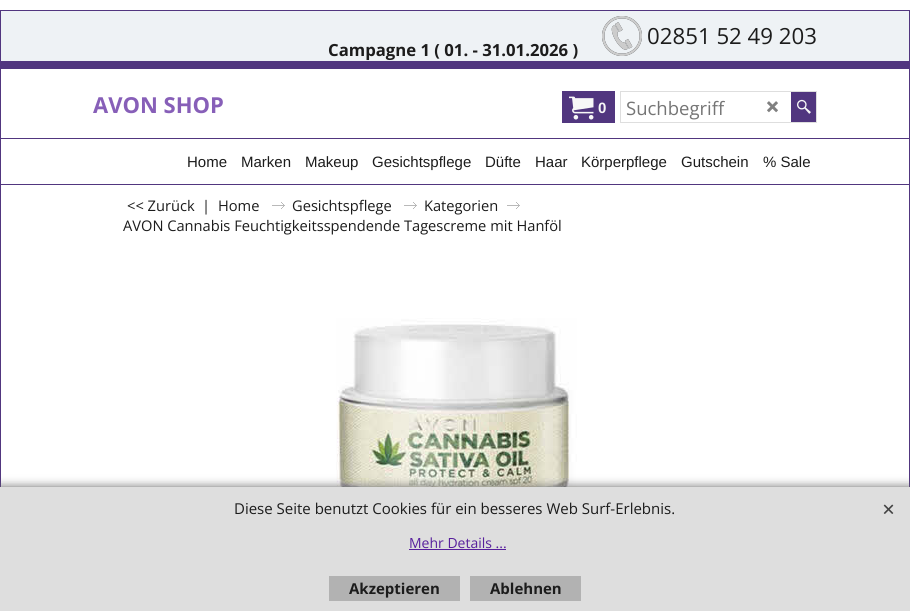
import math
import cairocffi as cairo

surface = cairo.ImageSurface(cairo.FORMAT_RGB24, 910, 611)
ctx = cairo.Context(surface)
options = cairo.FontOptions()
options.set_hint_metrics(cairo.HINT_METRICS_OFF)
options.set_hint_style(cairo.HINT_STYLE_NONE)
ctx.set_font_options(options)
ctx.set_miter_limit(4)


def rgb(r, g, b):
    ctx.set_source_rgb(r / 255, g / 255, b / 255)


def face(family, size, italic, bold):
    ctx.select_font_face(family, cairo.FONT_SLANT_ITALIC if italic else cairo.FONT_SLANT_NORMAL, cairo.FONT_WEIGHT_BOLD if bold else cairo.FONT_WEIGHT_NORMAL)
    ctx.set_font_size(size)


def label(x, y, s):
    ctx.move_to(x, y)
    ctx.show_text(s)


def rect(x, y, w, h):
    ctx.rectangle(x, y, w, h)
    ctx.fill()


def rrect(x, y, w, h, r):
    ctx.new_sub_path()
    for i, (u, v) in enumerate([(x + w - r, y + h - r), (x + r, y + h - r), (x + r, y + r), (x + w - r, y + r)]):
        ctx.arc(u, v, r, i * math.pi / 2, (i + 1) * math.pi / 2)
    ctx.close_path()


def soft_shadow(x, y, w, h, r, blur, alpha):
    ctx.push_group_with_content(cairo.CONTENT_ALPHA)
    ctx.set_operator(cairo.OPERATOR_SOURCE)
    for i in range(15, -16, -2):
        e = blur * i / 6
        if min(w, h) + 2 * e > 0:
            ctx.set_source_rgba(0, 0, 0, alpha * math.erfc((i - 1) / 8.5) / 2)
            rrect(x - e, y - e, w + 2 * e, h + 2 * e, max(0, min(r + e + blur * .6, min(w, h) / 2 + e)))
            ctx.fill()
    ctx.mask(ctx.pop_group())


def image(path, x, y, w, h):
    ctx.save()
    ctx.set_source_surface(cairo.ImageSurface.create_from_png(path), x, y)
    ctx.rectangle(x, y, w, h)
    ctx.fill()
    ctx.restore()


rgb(255, 255, 255)
ctx.paint()
ctx.rectangle(0.5, 10.5, 909, 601)
rgb(81, 54, 127)
ctx.set_line_width(1)
ctx.stroke()
rgb(238, 242, 245)
rect(1, 11, 908, 50)
image('image0.png', 602, 16, 40, 40)
face('Open Sans', 22.25, 0, 0)
rgb(28, 28, 28)
label(647, 44, '02851 52 49 203')
face('Open Sans', 16.7, 0, 1)
label(328, 56, 'Campagne 1 ( 01. - 31.01.2026 )')
rgb(81, 54, 127)
rect(1, 61, 908, 8)
rect(1, 138, 908, 1)
face('Open Sans', 22, 0, 1)
rgb(135, 95, 184)
label(93, 113, 'AVON SHOP')
rgb(81, 54, 127)
rect(562, 91, 53, 32)
image('image1.png', 569, 96, 25, 24)
face('Liberation Sans', 15, 0, 1)
rgb(247, 247, 247)
label(598, 113, '0')
rgb(222, 222, 222)
rect(620, 91, 197, 32)
rgb(255, 255, 255)
rect(621, 92, 170, 30)
face('Open Sans', 18.5, 0, 0)
rgb(117, 117, 117)
label(626, 115, 'Suchbegriff')
image('image2.png', 767, 101, 11, 12)
rgb(81, 54, 127)
rect(791, 92, 25, 30)
image('image3.png', 797, 99, 14, 15)
face('Liberation Sans', 15, 0, 0)
rgb(28, 28, 28)
label(187, 167, 'Home')
label(241, 167, 'Marken')
label(305, 167, 'Makeup')
label(372, 167, 'Gesichtspflege')
label(485, 167, 'Düfte')
label(535, 167, 'Haar')
label(581, 167, 'Körperpflege')
label(681, 167, 'Gutschein')
label(763, 167, '% Sale')
rgb(81, 54, 127)
rect(1, 184, 908, 1)
face('Open Sans', 14.65, 0, 0)
rgb(28, 28, 28)
label(127, 211, '<< Zurück')
label(202, 211, '|')
label(218, 211, 'Home')
image('image4.png', 272, 202, 13, 7)
label(292, 211, 'Gesichtspflege')
image('image4.png', 404, 202, 13, 7)
label(424, 211, 'Kategorien')
image('image4.png', 507, 202, 13, 7)
label(123, 231, 'AVON Cannabis Feuchtigkeitsspendende Tagescreme mit Hanföl')
image('image5.png', 336, 318, 241, 169)
rgb(102, 102, 102)
soft_shadow(0, 487, 910, 124, 0, 5, 1)
rgb(222, 222, 222)
rect(0, 487, 910, 124)
face('Open Sans', 15, 0, 0)
rgb(28, 28, 28)
label(234, 514, 'Diese Seite benutzt Cookies für ein besseres Web Surf-Erlebnis.')
face('Open Sans', 14, 0, 0)
rgb(87, 31, 156)
label(409, 548, 'Mehr Details ...')
rect(409, 549, 97, 1)
image('image6.png', 883, 504, 11, 10)
rgb(178, 178, 178)
rect(329, 576, 131, 25)
face('Open Sans', 15, 0, 1)
rgb(28, 28, 28)
label(349, 594, 'Akzeptieren')
rgb(178, 178, 178)
rect(470, 576, 111, 25)
rgb(28, 28, 28)
label(490, 594, 'Ablehnen')
surface.write_to_png('render.png')
